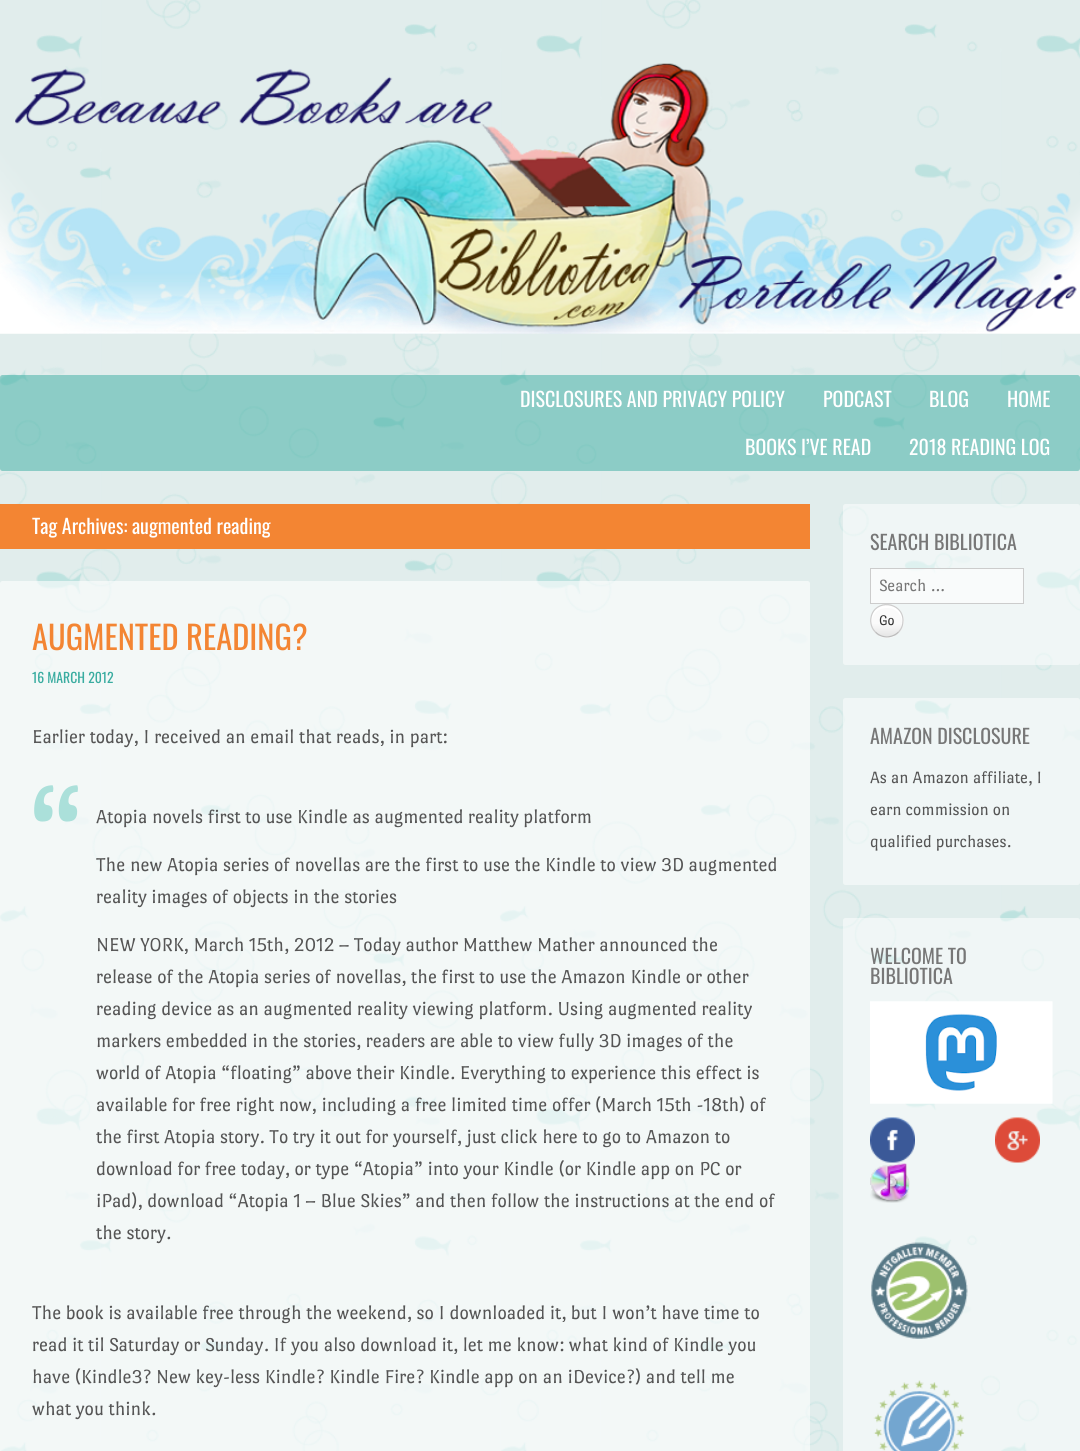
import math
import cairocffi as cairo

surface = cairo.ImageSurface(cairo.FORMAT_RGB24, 1080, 1451)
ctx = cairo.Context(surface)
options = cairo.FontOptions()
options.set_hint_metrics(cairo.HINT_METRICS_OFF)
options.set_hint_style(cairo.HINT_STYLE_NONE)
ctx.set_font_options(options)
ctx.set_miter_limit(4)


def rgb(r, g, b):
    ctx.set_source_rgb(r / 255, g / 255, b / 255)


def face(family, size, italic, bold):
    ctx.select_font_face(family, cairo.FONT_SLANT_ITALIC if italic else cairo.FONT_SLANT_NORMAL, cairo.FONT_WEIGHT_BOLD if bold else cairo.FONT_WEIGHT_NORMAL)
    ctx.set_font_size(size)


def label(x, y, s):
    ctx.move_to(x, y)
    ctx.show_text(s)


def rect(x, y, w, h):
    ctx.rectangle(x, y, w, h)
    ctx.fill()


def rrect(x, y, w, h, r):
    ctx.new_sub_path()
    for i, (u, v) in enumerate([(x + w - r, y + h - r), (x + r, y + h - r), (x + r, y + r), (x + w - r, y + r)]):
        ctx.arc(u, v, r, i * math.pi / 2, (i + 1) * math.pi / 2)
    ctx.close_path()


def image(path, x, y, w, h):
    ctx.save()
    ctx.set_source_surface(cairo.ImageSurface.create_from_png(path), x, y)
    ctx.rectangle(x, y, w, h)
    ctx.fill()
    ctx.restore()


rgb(255, 255, 255)
ctx.paint()
gradient = cairo.LinearGradient(540, 0, 540, 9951)
gradient.add_color_stop_rgba(0.27, 0.882, 0.929, 0.925, 1)
gradient.add_color_stop_rgba(1, 0.753, 0.929, 0.918, 1)
ctx.set_source(gradient)
rect(0, 0, 1080, 1451)
image('image1.png', 21, 0, 1059, 1451)
image('image2.png', 0, 24, 1080, 1427)
image('image3.png', 30, 66, 1050, 1328)
image('image0.png', 0, 0, 1078, 1442)
image('image4.png', 0, 63, 1080, 271)
ctx.set_source_rgba(0.224, 0.675, 0.627, 0.5)
rrect(0, 375, 1080, 96, 2.5)
ctx.fill()
face('Oswald', 20, 0, 0)
rgb(255, 255, 255)
label(520, 407, 'DISCLOSURES AND PRIVACY POLICY')
label(823, 407, 'PODCAST')
label(929, 407, 'BLOG')
label(1007, 407, 'HOME')
label(745, 455, 'BOOKS I’VE READ')
label(909, 455, '2018 READING LOG')
rgb(243, 133, 51)
rect(0, 504, 810, 45)
rgb(255, 255, 255)
label(32, 534, 'Tag Archives: augmented reading')
ctx.set_source_rgba(1, 1, 1, 0.6)
rrect(0, 581, 810, 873, 2.5)
ctx.fill()
face('Oswald', 32.5, 0, 0)
rgb(243, 133, 51)
label(32, 650, 'AUGMENTED READING?')
face('Oswald', 13.75, 0, 0)
rgb(57, 172, 160)
label(32, 683, '16 MARCH 2012')
face('Port Lligat Sans', 20, 0, 0)
rgb(85, 85, 85)
label(32, 743, 'Earlier today, I received an email that reads, in part:')
face('Port Lligat Sans', 136, 0, 0)
rgb(171, 224, 218)
label(26, 878, '“')
face('Port Lligat Sans', 20, 0, 0)
rgb(85, 85, 85)
label(96, 823, 'Atopia novels first to use Kindle as augmented reality platform')
label(96, 871, 'The new Atopia series of novellas are the first to use the Kindle to view 3D augmented')
label(96, 903, 'reality images of objects in the stories')
label(96, 951, 'NEW YORK, March 15th, 2012 – Today author Matthew Mather announced the')
label(96, 983, 'release of the Atopia series of novellas, the first to use the Amazon Kindle or other')
label(96, 1015, 'reading device as an augmented reality viewing platform. Using augmented reality')
label(96, 1047, 'markers embedded in the stories, readers are able to view fully 3D images of the')
label(96, 1079, 'world of Atopia “floating” above their Kindle. Everything to experience this effect is')
label(96, 1111, 'available for free right now, including a free limited time offer (March 15th -18th) of')
label(96, 1143, 'the first Atopia story. To try it out for yourself, just click here to go to Amazon to')
label(96, 1175, 'download for free today, or type “Atopia” into your Kindle (or Kindle app on PC or')
label(96, 1207, 'iPad), download “Atopia 1 – Blue Skies” and then follow the instructions at the end of')
label(96, 1239, 'the story.')
label(32, 1319, 'The book is available free through the weekend, so I downloaded it, but I won’t have time to')
label(32, 1351, 'read it til Saturday or Sunday. If you also download it, let me know: what kind of Kindle you')
label(32, 1383, 'have (Kindle3? New key-less Kindle? Kindle Fire? Kindle app on an iDevice?) and tell me')
label(32, 1415, 'what you think.')
ctx.set_source_rgba(1, 1, 1, 0.5)
rrect(843, 504, 237, 161, 2.5)
ctx.fill()
face('Oswald', 20, 0, 0)
rgb(119, 119, 119)
label(870, 550, 'SEARCH BIBLIOTICA')
ctx.set_source_rgba(1, 1, 1, 0.6)
ctx.rectangle(870.5, 568.5, 153, 35)
ctx.fill_preserve()
rgb(204, 204, 204)
ctx.set_line_width(1)
ctx.stroke()
face('Port Lligat Sans', 17.5, 0, 0)
rgb(119, 119, 119)
label(879, 591, 'Search …')
ctx.save()
rrect(870, 604, 34, 34, 17)
ctx.clip()
gradient = cairo.LinearGradient(887, 574, 887, 605)
gradient.add_color_stop_rgba(0.6, 0.98, 0.98, 0.98, 1)
gradient.add_color_stop_rgba(1, 0.902, 0.902, 0.902, 1)
ctx.set_source(gradient)
rect(881, 604, 12, 1)
gradient = cairo.LinearGradient(887, 605, 887, 636)
gradient.add_color_stop_rgba(0.6, 0.98, 0.98, 0.98, 1)
gradient.add_color_stop_rgba(1, 0.902, 0.902, 0.902, 1)
ctx.set_source(gradient)
rect(870, 605, 34, 31)
gradient = cairo.LinearGradient(887, 636, 887, 668)
gradient.add_color_stop_rgba(0.6, 0.98, 0.98, 0.98, 1)
gradient.add_color_stop_rgba(1, 0.902, 0.902, 0.902, 1)
ctx.set_source(gradient)
rect(879, 636, 16, 2)
ctx.restore()
rgb(255, 255, 255)
ctx.new_path()
ctx.move_to(887, 608)
ctx.curve_to(898.5, 608, 903.5, 618, 901.5, 626.5)
ctx.curve_to(909.5, 609, 884, 596.5, 873.5, 612)
ctx.curve_to(871.5, 615, 870.5, 619.5, 871.5, 623.5)
ctx.curve_to(871.5, 615.5, 876.5, 608, 887, 608)
ctx.close_path()
ctx.fill()
ctx.new_path()
ctx.move_to(898.5, 632)
ctx.curve_to(892, 638.5, 881.5, 638.5, 875.5, 632)
rgb(187, 187, 187)
ctx.set_line_width(1.2)
ctx.stroke()
ctx.new_path()
ctx.move_to(875.5, 632)
ctx.curve_to(871.5, 628.5, 870, 622.5, 871, 617.5)
ctx.curve_to(874.5, 598.5, 903, 601.5, 903, 620.5)
ctx.curve_to(903, 625, 901.5, 629, 898.5, 632)
rgb(204, 204, 204)
ctx.stroke()
face('Port Lligat Sans', 15, 0, 0)
rgb(50, 50, 50)
label(879, 625, 'Go')
ctx.set_source_rgba(1, 1, 1, 0.5)
rrect(843, 698, 237, 187, 2.5)
ctx.fill()
face('Oswald', 20, 0, 0)
rgb(119, 119, 119)
label(870, 744, 'AMAZON DISCLOSURE')
face('Port Lligat Sans', 17.5, 0, 0)
rgb(85, 85, 85)
label(870, 783, 'As an Amazon affiliate, I')
label(870, 815, 'earn commission on')
label(870, 847, 'qualified purchases.')
ctx.set_source_rgba(1, 1, 1, 0.5)
rrect(843, 918, 237, 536, 2.5)
ctx.fill()
face('Oswald', 20, 0, 0)
rgb(119, 119, 119)
label(870, 964, 'WELCOME TO')
label(870, 984, 'BIBLIOTICA')
image('image5.png', 870, 1001, 183, 103)
image('image6.png', 870, 1117, 45, 46)
image('image7.png', 995, 1117, 45, 46)
image('image8.png', 870, 1163, 40, 40)
image('image9.png', 871, 1242, 97, 97)
image('image10.png', 873, 1380, 92, 71)
surface.write_to_png('render.png')
